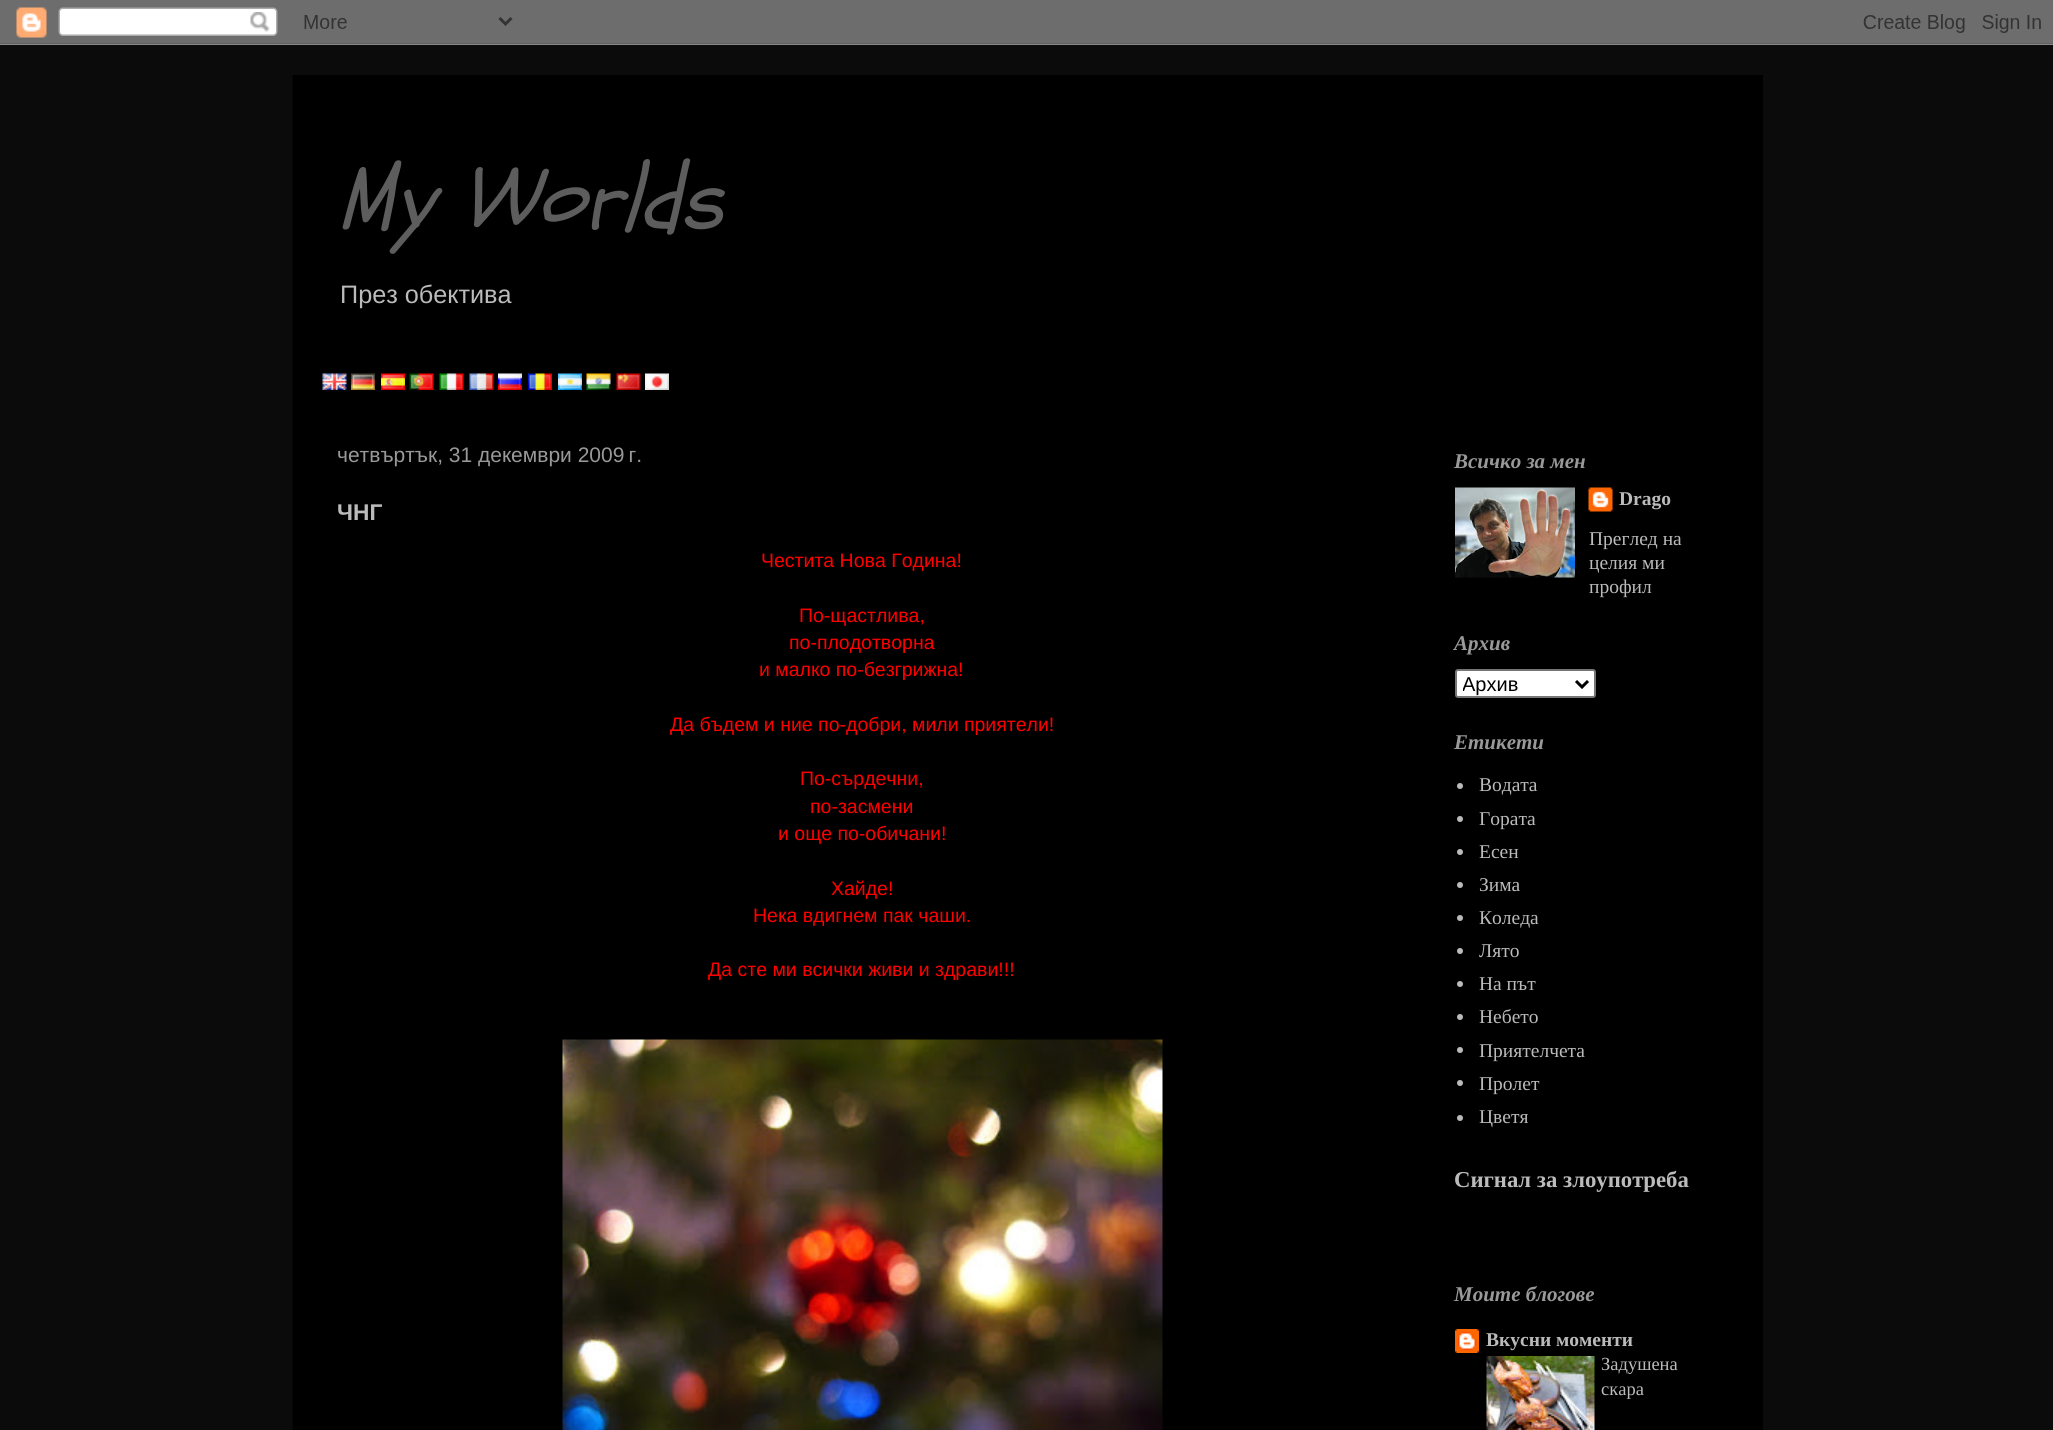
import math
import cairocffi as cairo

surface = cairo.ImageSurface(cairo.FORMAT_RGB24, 2053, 1430)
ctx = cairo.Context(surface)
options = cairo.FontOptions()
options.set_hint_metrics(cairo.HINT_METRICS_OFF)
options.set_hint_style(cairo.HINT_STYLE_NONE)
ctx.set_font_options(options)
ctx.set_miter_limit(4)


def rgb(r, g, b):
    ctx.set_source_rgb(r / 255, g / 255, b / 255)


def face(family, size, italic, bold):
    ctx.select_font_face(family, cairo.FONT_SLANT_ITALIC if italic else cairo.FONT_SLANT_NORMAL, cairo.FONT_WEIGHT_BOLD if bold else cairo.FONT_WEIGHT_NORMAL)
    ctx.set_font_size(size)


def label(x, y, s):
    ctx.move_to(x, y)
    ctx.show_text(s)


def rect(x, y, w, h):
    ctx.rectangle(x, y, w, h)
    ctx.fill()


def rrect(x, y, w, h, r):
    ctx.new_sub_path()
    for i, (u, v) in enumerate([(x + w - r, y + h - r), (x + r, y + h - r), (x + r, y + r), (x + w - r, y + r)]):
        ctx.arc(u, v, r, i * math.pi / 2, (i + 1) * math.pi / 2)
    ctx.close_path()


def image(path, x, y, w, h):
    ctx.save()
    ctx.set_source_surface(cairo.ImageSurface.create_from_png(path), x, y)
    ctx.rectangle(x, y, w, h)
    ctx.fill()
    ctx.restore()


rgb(12, 11, 11)
ctx.paint()
image('image0.png', 0, 0, 2053, 45)
rgb(0, 0, 0)
rect(293, 75, 1470, 1355)
rgb(8, 7, 7)
rect(292, 75, 1, 1355)
face('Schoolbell', 90, 1, 0)
rgb(93, 93, 93)
label(337, 228, 'My Worlds')
face('Liberation Sans', 25.25, 0, 0)
rgb(187, 187, 187)
label(340, 303, 'През обектива')
image('image1.png', 322, 373, 25, 17)
image('image2.png', 351, 373, 24, 17)
image('image3.png', 381, 373, 24, 17)
image('image4.png', 409, 373, 25, 17)
image('image5.png', 439, 373, 25, 17)
image('image6.png', 469, 373, 25, 17)
image('image7.png', 498, 373, 24, 17)
image('image8.png', 528, 373, 24, 17)
image('image9.png', 558, 373, 24, 17)
image('image10.png', 586, 373, 25, 17)
image('image11.png', 616, 373, 25, 17)
image('image12.png', 645, 373, 24, 17)
face('Liberation Sans', 21, 0, 0)
rgb(153, 153, 153)
label(337, 462, 'четвъртък, 31 декември 2009 г.')
face('Liberation Sans', 22.75, 0, 1)
rgb(187, 187, 187)
label(337, 520, 'ЧНГ')
face('Liberation Sans', 19.5, 0, 0)
rgb(255, 0, 0)
label(761, 567, 'Честита Нова Година!')
label(799, 622, 'По-щастлива,')
label(789, 649, 'по-плодотворна')
label(759, 676, 'и малко по-безгрижна!')
label(670, 731, 'Да бъдем и ние по-добри, мили приятели!')
label(800, 785, 'По-сърдечни,')
label(810, 813, 'по-засмени')
label(778, 840, 'и още по-обичани!')
label(831, 895, 'Хайде!')
label(753, 922, 'Нека вдигнем пак чаши.')
label(708, 976, 'Да сте ми всички живи и здрави!!!')
image('image13.png', 562, 1039, 601, 391)
face('Liberation Serif', 21, 1, 1)
rgb(153, 153, 153)
label(1454, 468, 'Всичко за мен')
image('image14.png', 1455, 487, 120, 91)
image('image15.png', 1588, 487, 25, 25)
face('Liberation Serif', 19.5, 0, 1)
rgb(187, 187, 187)
label(1619, 505, 'Drago')
face('Liberation Serif', 19.5, 0, 0)
label(1589, 545, 'Преглед на')
label(1589, 569, 'целия ми')
label(1589, 593, 'профил')
face('Liberation Serif', 21, 1, 1)
rgb(153, 153, 153)
label(1454, 650, 'Архив')
rgb(255, 255, 255)
rrect(1456, 670, 139, 27, 2)
ctx.fill_preserve()
rgb(118, 118, 118)
ctx.stroke()
ctx.new_path()
ctx.move_to(1576, 681)
ctx.line_to(1582, 687)
ctx.line_to(1588, 681)
rgb(0, 0, 0)
ctx.set_line_width(3)
ctx.stroke()
ctx.save()
ctx.rectangle(1463, 671, 108, 25)
ctx.clip()
face('Liberation Sans', 20, 0, 0)
label(1462, 691, 'Архив')
ctx.restore()
rgb(153, 153, 153)
label(1454, 749, 'Етикети')
rgb(187, 187, 187)
ctx.new_path()
ctx.arc(1460, 786, 3, 0, 2 * math.pi)
ctx.fill()
face('Liberation Serif', 19.5, 0, 0)
label(1479, 791, 'Водата')
ctx.new_path()
ctx.arc(1460, 819, 3, 0, 2 * math.pi)
ctx.fill()
label(1479, 825, 'Гората')
ctx.new_path()
ctx.arc(1460, 852, 3, 0, 2 * math.pi)
ctx.fill()
label(1479, 858, 'Есен')
ctx.new_path()
ctx.arc(1460, 885, 3, 0, 2 * math.pi)
ctx.fill()
label(1479, 891, 'Зима')
ctx.new_path()
ctx.arc(1460, 918, 3, 0, 2 * math.pi)
ctx.fill()
label(1479, 924, 'Коледа')
ctx.new_path()
ctx.arc(1460, 951, 3, 0, 2 * math.pi)
ctx.fill()
label(1479, 957, 'Лято')
ctx.new_path()
ctx.arc(1460, 984, 3, 0, 2 * math.pi)
ctx.fill()
label(1479, 990, 'На път')
ctx.new_path()
ctx.arc(1460, 1017, 3, 0, 2 * math.pi)
ctx.fill()
label(1479, 1023, 'Небето')
ctx.new_path()
ctx.arc(1460, 1050, 3, 0, 2 * math.pi)
ctx.fill()
label(1479, 1057, 'Приятелчета')
ctx.new_path()
ctx.arc(1460, 1083, 3, 0, 2 * math.pi)
ctx.fill()
label(1479, 1090, 'Пролет')
ctx.new_path()
ctx.arc(1460, 1118, 3, 0, 2 * math.pi)
ctx.fill()
label(1479, 1123, 'Цветя')
face('Liberation Serif', 22.75, 0, 1)
label(1454, 1187, 'Сигнал за злоупотреба')
face('Liberation Serif', 21, 1, 1)
rgb(153, 153, 153)
label(1454, 1301, 'Моите блогове')
image('image16.png', 1455, 1329, 24, 24)
face('Liberation Serif', 19.5, 0, 1)
rgb(187, 187, 187)
label(1486, 1346, 'Вкусни моменти')
image('image17.png', 1486, 1356, 109, 74)
face('Liberation Serif', 18.5, 0, 0)
label(1601, 1370, 'Задушена')
label(1601, 1395, 'скара')
surface.write_to_png('render.png')
